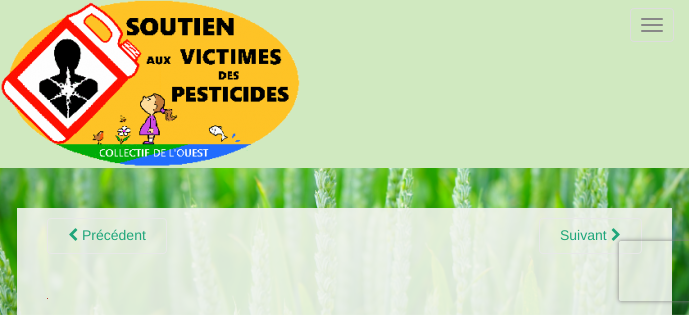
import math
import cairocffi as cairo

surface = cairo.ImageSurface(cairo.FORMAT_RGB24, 689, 315)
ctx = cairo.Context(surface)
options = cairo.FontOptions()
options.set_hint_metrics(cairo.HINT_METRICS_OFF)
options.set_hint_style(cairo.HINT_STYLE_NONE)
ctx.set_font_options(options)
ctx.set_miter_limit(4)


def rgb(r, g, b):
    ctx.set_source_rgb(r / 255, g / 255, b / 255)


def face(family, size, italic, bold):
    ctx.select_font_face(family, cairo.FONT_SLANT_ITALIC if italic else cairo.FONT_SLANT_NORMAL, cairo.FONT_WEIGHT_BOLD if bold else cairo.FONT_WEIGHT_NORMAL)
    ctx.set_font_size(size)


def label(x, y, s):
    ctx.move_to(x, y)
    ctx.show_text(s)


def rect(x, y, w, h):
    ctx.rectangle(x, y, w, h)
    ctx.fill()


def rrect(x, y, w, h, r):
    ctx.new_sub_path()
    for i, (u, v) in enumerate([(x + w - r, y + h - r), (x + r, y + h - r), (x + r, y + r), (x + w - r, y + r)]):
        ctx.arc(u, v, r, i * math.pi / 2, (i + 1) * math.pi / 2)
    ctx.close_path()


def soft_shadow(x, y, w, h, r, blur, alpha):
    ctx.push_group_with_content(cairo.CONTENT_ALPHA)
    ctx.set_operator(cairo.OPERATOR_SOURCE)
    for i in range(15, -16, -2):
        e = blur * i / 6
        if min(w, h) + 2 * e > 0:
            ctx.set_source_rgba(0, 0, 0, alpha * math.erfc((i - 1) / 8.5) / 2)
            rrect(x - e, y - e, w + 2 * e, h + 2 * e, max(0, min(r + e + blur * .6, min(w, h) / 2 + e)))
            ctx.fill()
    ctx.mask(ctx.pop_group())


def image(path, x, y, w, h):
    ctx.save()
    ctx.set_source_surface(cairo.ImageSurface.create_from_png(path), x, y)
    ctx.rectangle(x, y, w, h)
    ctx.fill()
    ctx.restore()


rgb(255, 255, 255)
ctx.paint()
image('image0.png', 0, 168, 689, 147)
rgb(208, 233, 192)
rect(0, 0, 689, 168)
image('image1.png', 1, 0, 299, 166)
rrect(630.5, 8.5, 43, 33, 3.5)
rgb(221, 221, 221)
ctx.set_line_width(1)
ctx.stroke()
rgb(136, 136, 136)
rrect(641, 18, 22, 2, 1)
ctx.fill()
rrect(641, 24, 22, 2, 1)
ctx.fill()
rrect(641, 30, 22, 2, 1)
ctx.fill()
ctx.set_source_rgba(0.949, 0.957, 0.937, 0.9)
rect(17, 208, 655, 107)
rrect(47.5, 218.5, 119, 35, 3.5)
rgb(232, 232, 232)
ctx.stroke()
image('image2.png', 69, 228, 9, 13)
face('Liberation Sans', 14, 0, 0)
rgb(31, 166, 122)
label(82, 240, 'Précédent')
rrect(539.5, 218.5, 102, 35, 3.5)
rgb(232, 232, 232)
ctx.stroke()
rgb(31, 166, 122)
label(560, 240, 'Suivant')
image('image3.png', 611, 228, 9, 13)
rgb(181, 55, 49)
rect(47, 298, 1, 1)
ctx.save()
ctx.set_fill_rule(cairo.FILL_RULE_EVEN_ODD)
ctx.new_path()
ctx.move_to(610, 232)
ctx.line_to(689, 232)
ctx.line_to(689, 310)
ctx.line_to(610, 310)
ctx.close_path()
ctx.move_to(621, 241)
ctx.line_to(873, 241)
ctx.curve_to(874, 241, 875, 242, 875, 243)
ctx.line_to(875, 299)
ctx.curve_to(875, 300, 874, 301, 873, 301)
ctx.line_to(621, 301)
ctx.curve_to(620, 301, 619, 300, 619, 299)
ctx.line_to(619, 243)
ctx.curve_to(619, 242, 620, 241, 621, 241)
ctx.close_path()
ctx.clip()
rgb(128, 128, 128)
soft_shadow(619, 241, 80, 60, 2, 2.5, 1)
ctx.restore()
surface.write_to_png('render.png')
